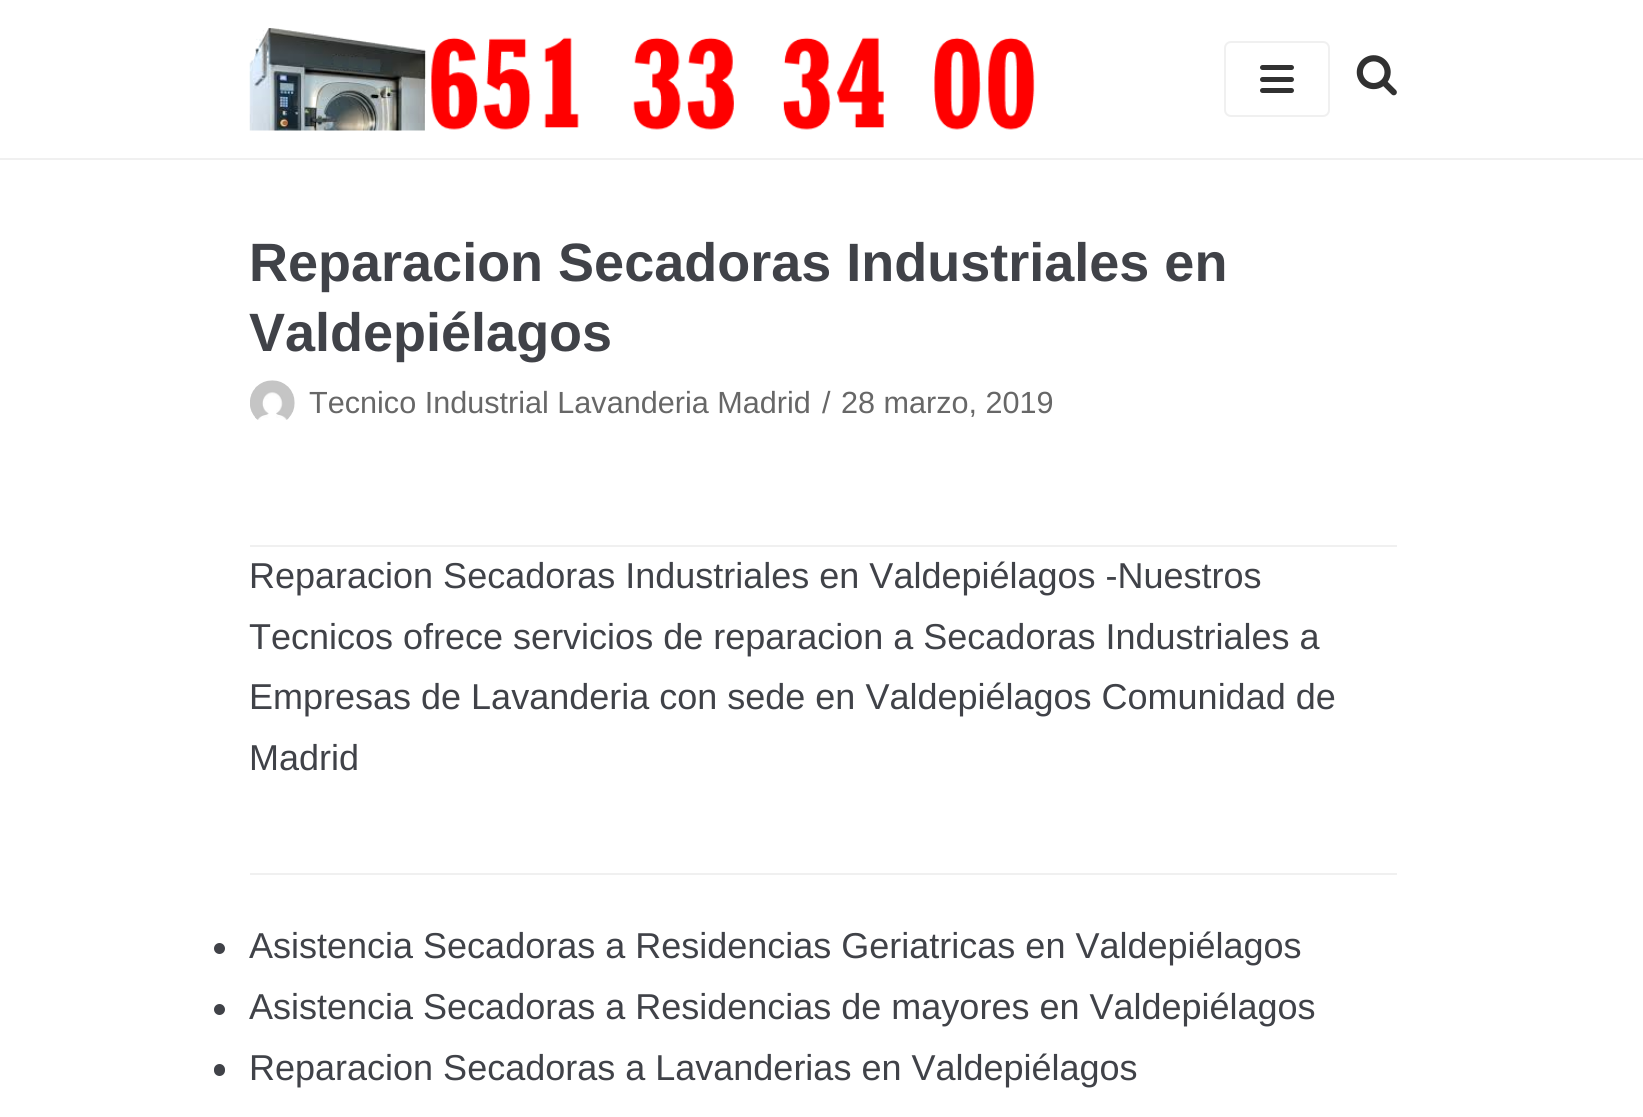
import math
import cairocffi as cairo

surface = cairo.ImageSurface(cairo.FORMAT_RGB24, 1643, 1117)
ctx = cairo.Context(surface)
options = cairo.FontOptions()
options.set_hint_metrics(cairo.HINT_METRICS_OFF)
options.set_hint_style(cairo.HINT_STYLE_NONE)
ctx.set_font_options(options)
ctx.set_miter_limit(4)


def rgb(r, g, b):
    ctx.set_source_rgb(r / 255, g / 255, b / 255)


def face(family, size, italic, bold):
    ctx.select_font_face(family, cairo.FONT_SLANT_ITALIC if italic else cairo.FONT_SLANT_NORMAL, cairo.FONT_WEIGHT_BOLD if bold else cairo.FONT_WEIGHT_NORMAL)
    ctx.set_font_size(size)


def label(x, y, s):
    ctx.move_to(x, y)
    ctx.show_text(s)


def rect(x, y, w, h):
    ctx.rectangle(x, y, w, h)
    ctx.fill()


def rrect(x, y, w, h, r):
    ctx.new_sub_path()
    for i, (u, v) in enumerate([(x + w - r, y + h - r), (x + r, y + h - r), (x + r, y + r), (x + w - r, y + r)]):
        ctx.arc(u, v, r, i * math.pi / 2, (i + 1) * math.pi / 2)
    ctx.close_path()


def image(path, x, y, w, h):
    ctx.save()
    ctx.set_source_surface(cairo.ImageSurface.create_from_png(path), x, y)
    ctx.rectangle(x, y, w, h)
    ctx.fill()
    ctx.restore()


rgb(255, 255, 255)
ctx.paint()
rgb(240, 240, 240)
rect(0, 158, 1643, 2)
image('image0.png', 249, 28, 786, 103)
rrect(1225, 42, 104, 74, 6)
ctx.stroke()
rgb(49, 49, 49)
rrect(1260, 65, 34, 5, 2.5)
ctx.fill()
rrect(1260, 77, 34, 5, 2.5)
ctx.fill()
rrect(1260, 88, 34, 5, 2.5)
ctx.fill()
image('image1.png', 1356, 55, 41, 41)
face('Liberation Sans', 54, 0, 1)
rgb(64, 66, 72)
label(249, 281, 'Reparacion Secadoras Industriales en')
label(249, 351, 'Valdepiélagos')
image('image2.png', 250, 380, 45, 40)
face('Liberation Sans', 30.6, 0, 0)
rgb(103, 103, 103)
label(309, 413, 'Tecnico Industrial Lavanderia Madrid')
label(822, 413, '/')
label(841, 413, '28 marzo, 2019')
rgb(240, 240, 240)
rect(250, 545, 1147, 2)
face('Liberation Sans', 36, 0, 0)
rgb(64, 66, 72)
label(249, 588, 'Reparacion Secadoras Industriales en Valdepiélagos -Nuestros')
label(249, 649, 'Tecnicos ofrece servicios de reparacion a Secadoras Industriales a')
label(249, 709, 'Empresas de Lavanderia con sede en Valdepiélagos Comunidad de')
label(249, 770, 'Madrid')
rgb(240, 240, 240)
rect(250, 873, 1147, 2)
rgb(64, 66, 72)
ctx.new_path()
ctx.arc(219.5, 948.5, 5.5, 0, 2 * math.pi)
ctx.fill()
label(249, 958, 'Asistencia Secadoras a Residencias Geriatricas en Valdepiélagos')
ctx.new_path()
ctx.arc(219.5, 1009.5, 5.5, 0, 2 * math.pi)
ctx.fill()
label(249, 1019, 'Asistencia Secadoras a Residencias de mayores en Valdepiélagos')
rrect(214, 1064, 11, 12, 5.5)
ctx.fill()
label(249, 1080, 'Reparacion Secadoras a Lavanderias en Valdepiélagos')
surface.write_to_png('render.png')
